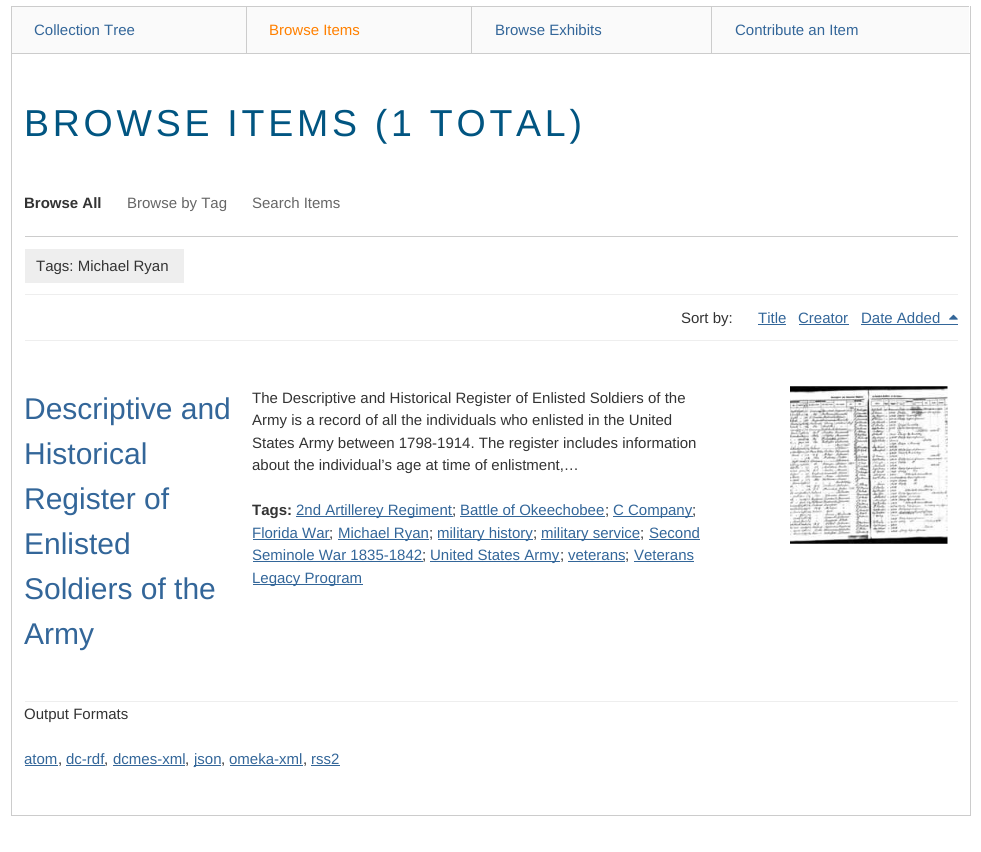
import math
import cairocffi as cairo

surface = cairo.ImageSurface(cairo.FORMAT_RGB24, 981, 852)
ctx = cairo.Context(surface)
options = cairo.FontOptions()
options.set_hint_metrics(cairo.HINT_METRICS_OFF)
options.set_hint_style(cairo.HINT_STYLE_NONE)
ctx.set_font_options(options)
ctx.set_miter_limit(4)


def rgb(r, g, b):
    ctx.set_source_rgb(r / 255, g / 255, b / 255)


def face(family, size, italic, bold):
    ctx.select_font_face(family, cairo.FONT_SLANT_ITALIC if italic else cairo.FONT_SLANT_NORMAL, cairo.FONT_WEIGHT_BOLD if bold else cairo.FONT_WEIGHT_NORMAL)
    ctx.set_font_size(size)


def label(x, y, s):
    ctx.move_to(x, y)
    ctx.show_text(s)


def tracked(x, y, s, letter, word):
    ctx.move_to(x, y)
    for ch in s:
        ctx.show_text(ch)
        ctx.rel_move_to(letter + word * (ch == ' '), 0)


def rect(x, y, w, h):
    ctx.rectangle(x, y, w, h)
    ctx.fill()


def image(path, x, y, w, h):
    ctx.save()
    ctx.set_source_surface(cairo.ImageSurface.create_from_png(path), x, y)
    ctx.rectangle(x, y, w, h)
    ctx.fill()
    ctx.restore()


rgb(255, 255, 255)
ctx.paint()
rgb(204, 204, 204)
rect(970, 6, 1, 47)
rgb(250, 250, 250)
rect(12, 7, 234, 46)
rgb(204, 204, 204)
rect(11, 6, 235, 1)
rect(11, 6, 1, 47)
face('Liberation Sans', 15, 0, 0)
rgb(51, 102, 153)
label(34, 35, 'Collection Tree')
rgb(250, 250, 250)
rect(247, 7, 224, 46)
rgb(204, 204, 204)
rect(246, 6, 723, 1)
rect(246, 6, 1, 47)
rgb(255, 128, 0)
label(269, 35, 'Browse Items')
rgb(250, 250, 250)
rect(472, 7, 239, 46)
rgb(204, 204, 204)
rect(471, 6, 1, 47)
rgb(51, 102, 153)
label(495, 35, 'Browse Exhibits')
rgb(250, 250, 250)
rect(712, 7, 257, 46)
rgb(204, 204, 204)
rect(711, 6, 1, 47)
rgb(51, 102, 153)
label(735, 35, 'Contribute an Item')
ctx.rectangle(11.5, 53.5, 959, 762)
rgb(204, 204, 204)
ctx.set_line_width(1)
ctx.stroke()
face('Liberation Sans', 37.5, 0, 0)
rgb(1, 85, 129)
tracked(24, 136, 'BROWSE ITEMS (1 TOTAL)', 3.75, 0)
rgb(204, 204, 204)
rect(25, 236, 933, 1)
face('Liberation Sans', 15, 0, 1)
rgb(51, 51, 51)
label(24, 208, 'Browse All')
face('Liberation Sans', 15, 0, 0)
rgb(102, 102, 102)
label(127, 208, 'Browse by Tag')
label(252, 208, 'Search Items')
rgb(238, 238, 238)
rect(25, 294, 933, 1)
rect(25, 249, 159, 34)
rgb(51, 51, 51)
label(36, 271, 'Tags: Michael Ryan')
label(681, 323, 'Sort by:')
rgb(51, 102, 153)
label(758, 323, 'Title')
rect(758, 324, 28, 1)
label(798, 323, 'Creator')
rect(799, 324, 50, 1)
label(861, 323, 'Date Added')
rect(861, 324, 97, 1)
image('image0.png', 949, 314, 9, 6)
rgb(238, 238, 238)
rect(25, 340, 933, 1)
rect(25, 701, 933, 1)
face('Liberation Sans', 30, 0, 0)
rgb(51, 102, 153)
label(24, 419, 'Descriptive and')
label(24, 464, 'Historical')
label(24, 509, 'Register of')
label(24, 554, 'Enlisted')
label(24, 599, 'Soldiers of the')
label(24, 644, 'Army')
face('Liberation Sans', 15, 0, 0)
rgb(51, 51, 51)
label(252, 403, 'The Descriptive and Historical Register of Enlisted Soldiers of the')
label(252, 425, 'Army is a record of all the individuals who enlisted in the United')
label(252, 448, 'States Army between 1798-1914. The register includes information')
label(252, 470, 'about the individual’s age at time of enlistment,…')
image('image1.png', 790, 386, 158, 158)
face('Liberation Sans', 15, 0, 1)
label(252, 515, 'Tags:')
rgb(51, 102, 153)
rect(296, 516, 157, 1)
face('Liberation Sans', 15, 0, 0)
label(296, 515, '2nd Artillerey Regiment')
rgb(51, 51, 51)
label(452, 515, ';')
rgb(51, 102, 153)
label(460, 515, 'Battle of Okeechobee')
rect(460, 516, 145, 1)
rgb(51, 51, 51)
label(605, 515, ';')
rgb(51, 102, 153)
rect(613, 516, 80, 1)
label(613, 515, 'C Company')
rgb(51, 51, 51)
label(692, 515, ';')
rgb(51, 102, 153)
label(252, 538, 'Florida War')
rect(253, 539, 77, 1)
rgb(51, 51, 51)
label(329, 538, ';')
rgb(51, 102, 153)
rect(338, 539, 91, 1)
label(338, 538, 'Michael Ryan')
rgb(51, 51, 51)
label(429, 538, ';')
rgb(51, 102, 153)
rect(438, 539, 95, 1)
label(437, 538, 'military history')
rgb(51, 51, 51)
label(533, 538, ';')
rgb(51, 102, 153)
rect(541, 539, 99, 1)
label(541, 538, 'military service')
rgb(51, 51, 51)
label(640, 538, ';')
rgb(51, 102, 153)
label(649, 538, 'Second')
rect(649, 539, 51, 1)
label(252, 560, 'Seminole War 1835-1842')
rect(253, 561, 170, 1)
rgb(51, 51, 51)
label(422, 560, ';')
rgb(51, 102, 153)
rect(430, 561, 130, 1)
label(430, 560, 'United States Army')
rgb(51, 51, 51)
label(560, 560, ';')
rgb(51, 102, 153)
label(568, 560, 'veterans')
rect(568, 561, 57, 1)
rgb(51, 51, 51)
label(625, 560, ';')
rgb(51, 102, 153)
label(634, 560, 'Veterans')
rect(634, 561, 60, 1)
rect(253, 584, 110, 1)
label(252, 583, 'Legacy Program')
rgb(51, 51, 51)
label(24, 719, 'Output Formats')
rgb(51, 102, 153)
label(24, 764, 'atom')
rect(25, 765, 33, 1)
rgb(51, 51, 51)
label(58, 764, ',')
rgb(51, 102, 153)
label(66, 764, 'dc-rdf')
rect(66, 765, 39, 1)
rgb(51, 51, 51)
label(104, 764, ',')
rgb(51, 102, 153)
label(113, 764, 'dcmes-xml')
rect(113, 765, 72, 1)
rgb(51, 51, 51)
label(185, 764, ',')
rgb(51, 102, 153)
rect(194, 765, 27, 1)
label(194, 764, 'json')
rgb(51, 51, 51)
label(221, 764, ',')
rgb(51, 102, 153)
label(229, 764, 'omeka-xml')
rect(230, 765, 73, 1)
rgb(51, 51, 51)
label(303, 764, ',')
rgb(51, 102, 153)
label(311, 764, 'rss2')
rect(311, 765, 29, 1)
surface.write_to_png('render.png')
